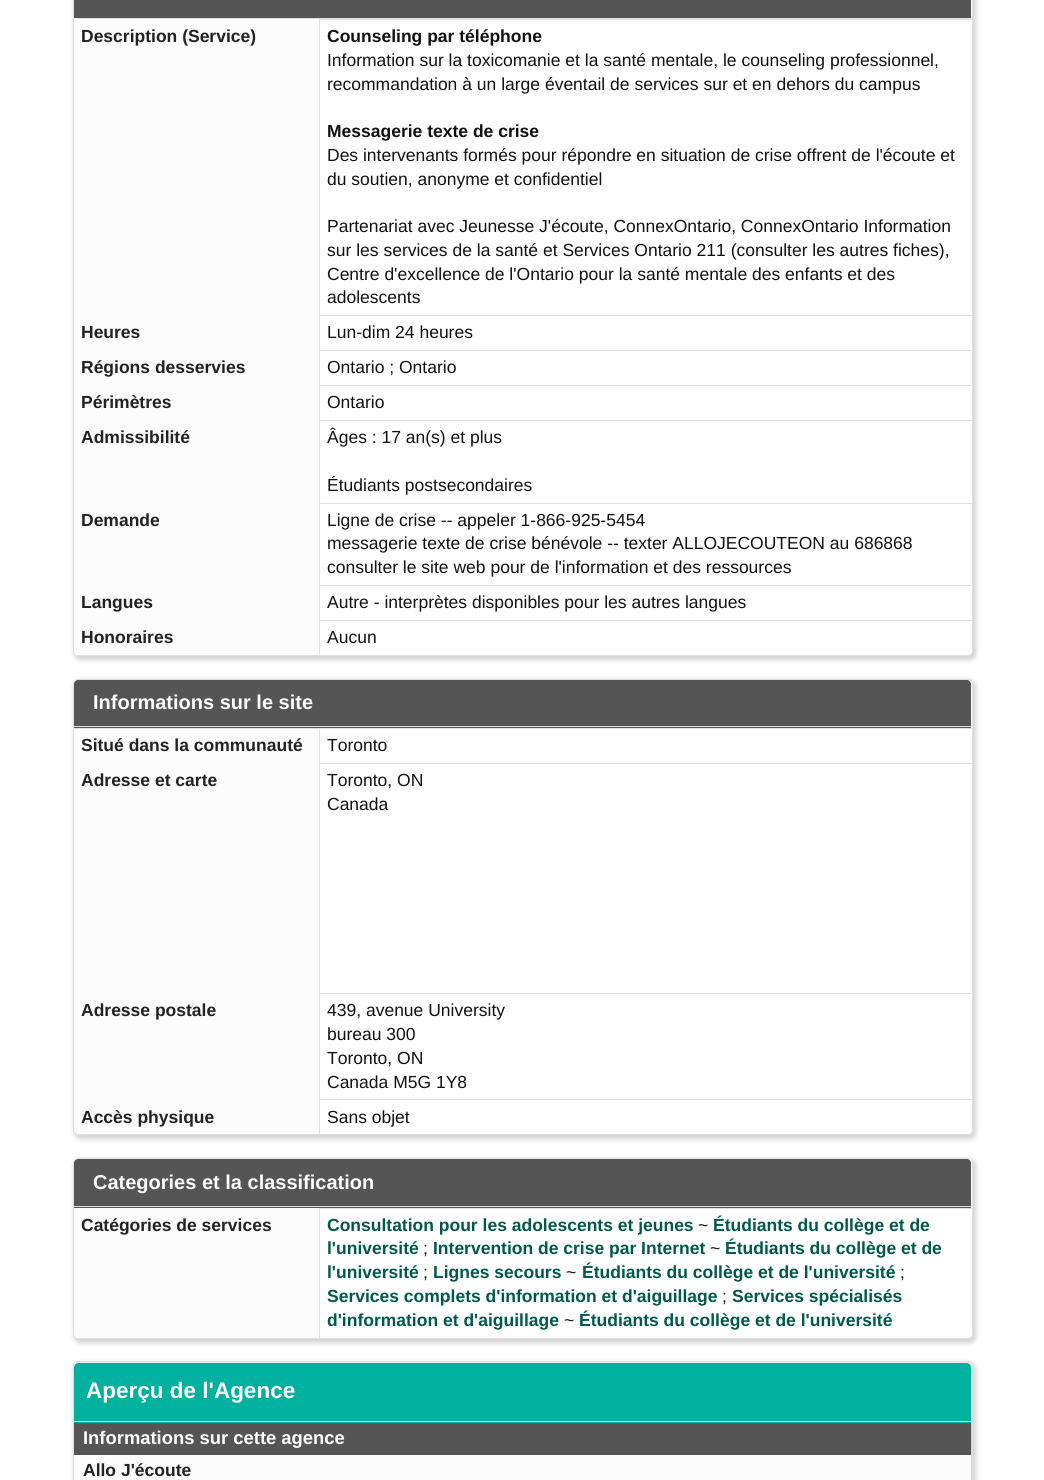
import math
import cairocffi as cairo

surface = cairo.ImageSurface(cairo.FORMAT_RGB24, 1044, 1480)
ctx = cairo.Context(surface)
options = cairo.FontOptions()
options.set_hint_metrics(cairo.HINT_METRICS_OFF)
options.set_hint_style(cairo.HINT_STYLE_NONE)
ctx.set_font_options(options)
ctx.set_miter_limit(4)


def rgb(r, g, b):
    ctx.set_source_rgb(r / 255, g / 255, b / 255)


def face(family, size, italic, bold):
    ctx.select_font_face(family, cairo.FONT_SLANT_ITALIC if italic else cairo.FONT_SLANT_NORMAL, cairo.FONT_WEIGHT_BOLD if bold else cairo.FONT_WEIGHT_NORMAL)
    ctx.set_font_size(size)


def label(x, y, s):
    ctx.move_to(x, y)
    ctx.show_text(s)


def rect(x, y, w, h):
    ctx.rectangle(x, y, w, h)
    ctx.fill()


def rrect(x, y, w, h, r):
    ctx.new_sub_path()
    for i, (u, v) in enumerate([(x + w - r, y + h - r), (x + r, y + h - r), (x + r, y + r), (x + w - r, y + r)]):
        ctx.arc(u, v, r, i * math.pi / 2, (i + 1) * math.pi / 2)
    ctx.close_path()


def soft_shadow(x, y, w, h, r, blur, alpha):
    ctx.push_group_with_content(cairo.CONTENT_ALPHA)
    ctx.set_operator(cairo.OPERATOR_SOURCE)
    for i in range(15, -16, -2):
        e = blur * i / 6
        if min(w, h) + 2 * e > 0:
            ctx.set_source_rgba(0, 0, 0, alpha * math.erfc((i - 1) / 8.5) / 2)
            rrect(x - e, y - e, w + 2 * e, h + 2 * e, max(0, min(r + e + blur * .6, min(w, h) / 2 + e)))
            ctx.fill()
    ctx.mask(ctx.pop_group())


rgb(255, 255, 255)
ctx.paint()
rgb(102, 102, 102)
soft_shadow(74, -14, 902, 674, 6, 2.5, 0.3)
rgb(255, 255, 255)
rrect(73.5, -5.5, 899, 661, 4.5)
ctx.fill_preserve()
rgb(224, 224, 224)
ctx.set_line_width(1)
ctx.stroke()
rgb(85, 85, 85)
rect(74, 0, 897, 18)
rgb(224, 224, 224)
rect(74, 18, 897, 1)
rgb(252, 252, 252)
rect(74, 19, 245, 601)
face('Liberation Sans', 17.5, 0, 1)
rgb(34, 34, 34)
label(81, 42, 'Description (Service)')
rgb(224, 224, 224)
rect(319, 19, 654, 1)
rect(319, 315, 654, 1)
rect(319, 350, 654, 1)
rect(319, 385, 654, 1)
rect(319, 420, 654, 1)
rect(319, 503, 654, 1)
rect(319, 585, 654, 1)
rect(319, 620, 654, 1)
rect(319, 620, 1, 35)
rect(319, 585, 1, 36)
rect(319, 503, 1, 83)
rect(319, 420, 1, 84)
rect(319, 385, 1, 36)
rect(319, 350, 1, 36)
rect(319, 315, 1, 36)
rect(319, 19, 1, 297)
rgb(17, 17, 17)
label(327, 42, 'Counseling par téléphone')
face('Liberation Sans', 17.5, 0, 0)
label(327, 66, 'Information sur la toxicomanie et la santé mentale, le counseling professionnel,')
label(327, 90, 'recommandation à un large éventail de services sur et en dehors du campus')
face('Liberation Sans', 17.5, 0, 1)
label(327, 137, 'Messagerie texte de crise')
face('Liberation Sans', 17.5, 0, 0)
label(327, 161, 'Des intervenants formés pour répondre en situation de crise offrent de l\'écoute et')
label(327, 185, 'du soutien, anonyme et confidentiel')
label(327, 232, 'Partenariat avec Jeunesse J\'écoute, ConnexOntario, ConnexOntario Information')
label(327, 256, 'sur les services de la santé et Services Ontario 211 (consulter les autres fiches),')
label(327, 280, 'Centre d\'excellence de l\'Ontario pour la santé mentale des enfants et des')
label(327, 303, 'adolescents')
face('Liberation Sans', 17.5, 0, 1)
rgb(34, 34, 34)
label(81, 338, 'Heures')
face('Liberation Sans', 17.5, 0, 0)
rgb(17, 17, 17)
label(327, 338, 'Lun-dim 24 heures')
face('Liberation Sans', 17.5, 0, 1)
rgb(34, 34, 34)
label(81, 373, 'Régions desservies')
face('Liberation Sans', 17.5, 0, 0)
rgb(17, 17, 17)
label(327, 373, 'Ontario ; Ontario')
face('Liberation Sans', 17.5, 0, 1)
rgb(34, 34, 34)
label(81, 408, 'Périmètres')
face('Liberation Sans', 17.5, 0, 0)
rgb(17, 17, 17)
label(327, 408, 'Ontario')
face('Liberation Sans', 17.5, 0, 1)
rgb(34, 34, 34)
label(81, 443, 'Admissibilité')
face('Liberation Sans', 17.5, 0, 0)
rgb(17, 17, 17)
label(327, 443, 'Âges : 17 an(s) et plus')
label(327, 491, 'Étudiants postsecondaires')
face('Liberation Sans', 17.5, 0, 1)
rgb(34, 34, 34)
label(81, 526, 'Demande')
face('Liberation Sans', 17.5, 0, 0)
rgb(17, 17, 17)
label(327, 526, 'Ligne de crise -- appeler 1-866-925-5454')
label(327, 549, 'messagerie texte de crise bénévole -- texter ALLOJECOUTEON au 686868')
label(327, 573, 'consulter le site web pour de l\'information et des ressources')
face('Liberation Sans', 17.5, 0, 1)
rgb(34, 34, 34)
label(81, 608, 'Langues')
face('Liberation Sans', 17.5, 0, 0)
rgb(17, 17, 17)
label(327, 608, 'Autre - interprètes disponibles pour les autres langues')
rgb(252, 252, 252)
ctx.new_path()
ctx.move_to(74, 620)
ctx.line_to(319, 620)
ctx.line_to(319, 655)
ctx.line_to(79, 655)
ctx.curve_to(76, 655, 74, 653, 74, 650)
ctx.close_path()
ctx.fill()
face('Liberation Sans', 17.5, 0, 1)
rgb(34, 34, 34)
label(81, 643, 'Honoraires')
face('Liberation Sans', 17.5, 0, 0)
rgb(17, 17, 17)
label(327, 643, 'Aucun')
rgb(102, 102, 102)
soft_shadow(74, 680, 902, 459, 6, 2.5, 0.3)
rgb(255, 255, 255)
rrect(73.5, 679.5, 899, 455, 4.5)
ctx.fill_preserve()
rgb(224, 224, 224)
ctx.stroke()
rgb(85, 85, 85)
ctx.new_path()
ctx.move_to(78, 680)
ctx.line_to(967, 680)
ctx.curve_to(969, 680, 971, 682, 971, 684)
ctx.line_to(971, 728)
ctx.line_to(74, 728)
ctx.line_to(74, 684)
ctx.curve_to(74, 682, 76, 680, 78, 680)
ctx.close_path()
ctx.fill()
rgb(224, 224, 224)
rect(74, 726, 897, 1)
face('Liberation Sans', 20, 0, 1)
rgb(255, 255, 255)
label(93, 709, 'Informations sur le site')
rgb(224, 224, 224)
rect(74, 728, 899, 1)
rgb(252, 252, 252)
rect(74, 729, 245, 371)
face('Liberation Sans', 17.5, 0, 1)
rgb(34, 34, 34)
label(81, 751, 'Situé dans la communauté')
face('Liberation Sans', 17.5, 0, 0)
rgb(17, 17, 17)
label(327, 751, 'Toronto')
face('Liberation Sans', 17.5, 0, 1)
rgb(34, 34, 34)
label(81, 786, 'Adresse et carte')
rgb(224, 224, 224)
rect(319, 763, 654, 1)
rect(319, 993, 654, 1)
rect(319, 1099, 654, 1)
rect(319, 1099, 1, 36)
rect(319, 993, 1, 107)
rect(319, 728, 1, 266)
face('Liberation Sans', 17.5, 0, 0)
rgb(17, 17, 17)
label(327, 786, 'Toronto, ON')
label(327, 810, 'Canada')
face('Liberation Sans', 17.5, 0, 1)
rgb(34, 34, 34)
label(81, 1016, 'Adresse postale')
face('Liberation Sans', 17.5, 0, 0)
rgb(17, 17, 17)
label(327, 1016, '439, avenue University')
label(327, 1040, 'bureau 300')
label(327, 1064, 'Toronto, ON')
label(327, 1088, 'Canada M5G 1Y8')
rgb(252, 252, 252)
ctx.new_path()
ctx.move_to(74, 1100)
ctx.line_to(319, 1100)
ctx.line_to(319, 1134)
ctx.line_to(79, 1134)
ctx.curve_to(76, 1134, 74, 1132, 74, 1129)
ctx.close_path()
ctx.fill()
face('Liberation Sans', 17.5, 0, 1)
rgb(34, 34, 34)
label(81, 1123, 'Accès physique')
face('Liberation Sans', 17.5, 0, 0)
rgb(17, 17, 17)
label(327, 1123, 'Sans objet')
rgb(102, 102, 102)
soft_shadow(74, 1159, 902, 184, 6, 2.5, 0.3)
rgb(255, 255, 255)
rrect(73.5, 1158.5, 899, 180, 4.5)
ctx.fill_preserve()
rgb(224, 224, 224)
ctx.stroke()
rgb(85, 85, 85)
ctx.new_path()
ctx.move_to(78, 1159)
ctx.line_to(967, 1159)
ctx.curve_to(969, 1159, 971, 1161, 971, 1163)
ctx.line_to(971, 1208)
ctx.line_to(74, 1208)
ctx.line_to(74, 1163)
ctx.curve_to(74, 1161, 76, 1159, 78, 1159)
ctx.close_path()
ctx.fill()
rgb(224, 224, 224)
rect(74, 1206, 897, 1)
face('Liberation Sans', 20, 0, 1)
rgb(255, 255, 255)
label(93, 1189, 'Categories et la classification')
rgb(252, 252, 252)
ctx.new_path()
ctx.move_to(74, 1208)
ctx.line_to(319, 1208)
ctx.line_to(319, 1338)
ctx.line_to(79, 1338)
ctx.curve_to(76, 1338, 74, 1336, 74, 1333)
ctx.close_path()
ctx.fill()
face('Liberation Sans', 17.5, 0, 1)
rgb(34, 34, 34)
label(81, 1231, 'Catégories de services')
rgb(224, 224, 224)
rect(319, 1208, 654, 1)
rect(319, 1208, 1, 130)
rgb(0, 89, 77)
label(327, 1231, 'Consultation pour les adolescents et jeunes')
face('Liberation Sans', 17.5, 0, 0)
rgb(17, 17, 17)
label(698, 1231, '~')
face('Liberation Sans', 17.5, 0, 1)
rgb(0, 89, 77)
label(713, 1231, 'Étudiants du collège et de')
label(327, 1254, 'l\'université')
face('Liberation Sans', 17.5, 0, 0)
rgb(17, 17, 17)
label(423, 1254, ';')
face('Liberation Sans', 17.5, 0, 1)
rgb(0, 89, 77)
label(433, 1254, 'Intervention de crise par Internet')
face('Liberation Sans', 17.5, 0, 0)
rgb(17, 17, 17)
label(710, 1254, '~')
face('Liberation Sans', 17.5, 0, 1)
rgb(0, 89, 77)
label(725, 1254, 'Étudiants du collège et de')
label(327, 1278, 'l\'université')
face('Liberation Sans', 17.5, 0, 0)
rgb(17, 17, 17)
label(423, 1278, ';')
face('Liberation Sans', 17.5, 0, 1)
rgb(0, 89, 77)
label(433, 1278, 'Lignes secours')
face('Liberation Sans', 17.5, 0, 0)
rgb(17, 17, 17)
label(566, 1278, '~')
face('Liberation Sans', 17.5, 0, 1)
rgb(0, 89, 77)
label(582, 1278, 'Étudiants du collège et de l\'université')
face('Liberation Sans', 17.5, 0, 0)
rgb(17, 17, 17)
label(900, 1278, ';')
face('Liberation Sans', 17.5, 0, 1)
rgb(0, 89, 77)
label(327, 1302, 'Services complets d\'information et d\'aiguillage')
face('Liberation Sans', 17.5, 0, 0)
rgb(17, 17, 17)
label(722, 1302, ';')
face('Liberation Sans', 17.5, 0, 1)
rgb(0, 89, 77)
label(732, 1302, 'Services spécialisés')
label(327, 1326, 'd\'information et d\'aiguillage')
face('Liberation Sans', 17.5, 0, 0)
rgb(17, 17, 17)
label(564, 1326, '~')
face('Liberation Sans', 17.5, 0, 1)
rgb(0, 89, 77)
label(579, 1326, 'Étudiants du collège et de l\'université')
rgb(102, 102, 102)
soft_shadow(74, 1363, 902, 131, 6, 2.5, 0.3)
rrect(73.5, 1361.5, 899, 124, 4.5)
rgb(224, 224, 224)
ctx.stroke()
rgb(0, 177, 159)
ctx.new_path()
ctx.move_to(79, 1363)
ctx.line_to(966, 1363)
ctx.curve_to(969, 1363, 971, 1365, 971, 1368)
ctx.line_to(971, 1423)
ctx.line_to(74, 1423)
ctx.line_to(74, 1368)
ctx.curve_to(74, 1365, 76, 1363, 79, 1363)
ctx.close_path()
ctx.fill()
rgb(224, 224, 224)
rect(74, 1421, 897, 1)
face('Liberation Sans', 22.5, 0, 1)
rgb(255, 255, 255)
label(86, 1398, 'Aperçu de l\'Agence')
rgb(85, 85, 85)
rect(74, 1423, 897, 32)
face('Liberation Sans', 18.4, 0, 1)
rgb(255, 255, 255)
label(83, 1444, 'Informations sur cette agence')
rgb(252, 252, 252)
rect(74, 1455, 897, 25)
face('Liberation Sans', 17.5, 0, 1)
rgb(34, 34, 34)
label(83, 1476, 'Allo J\'écoute')
surface.write_to_png('render.png')
